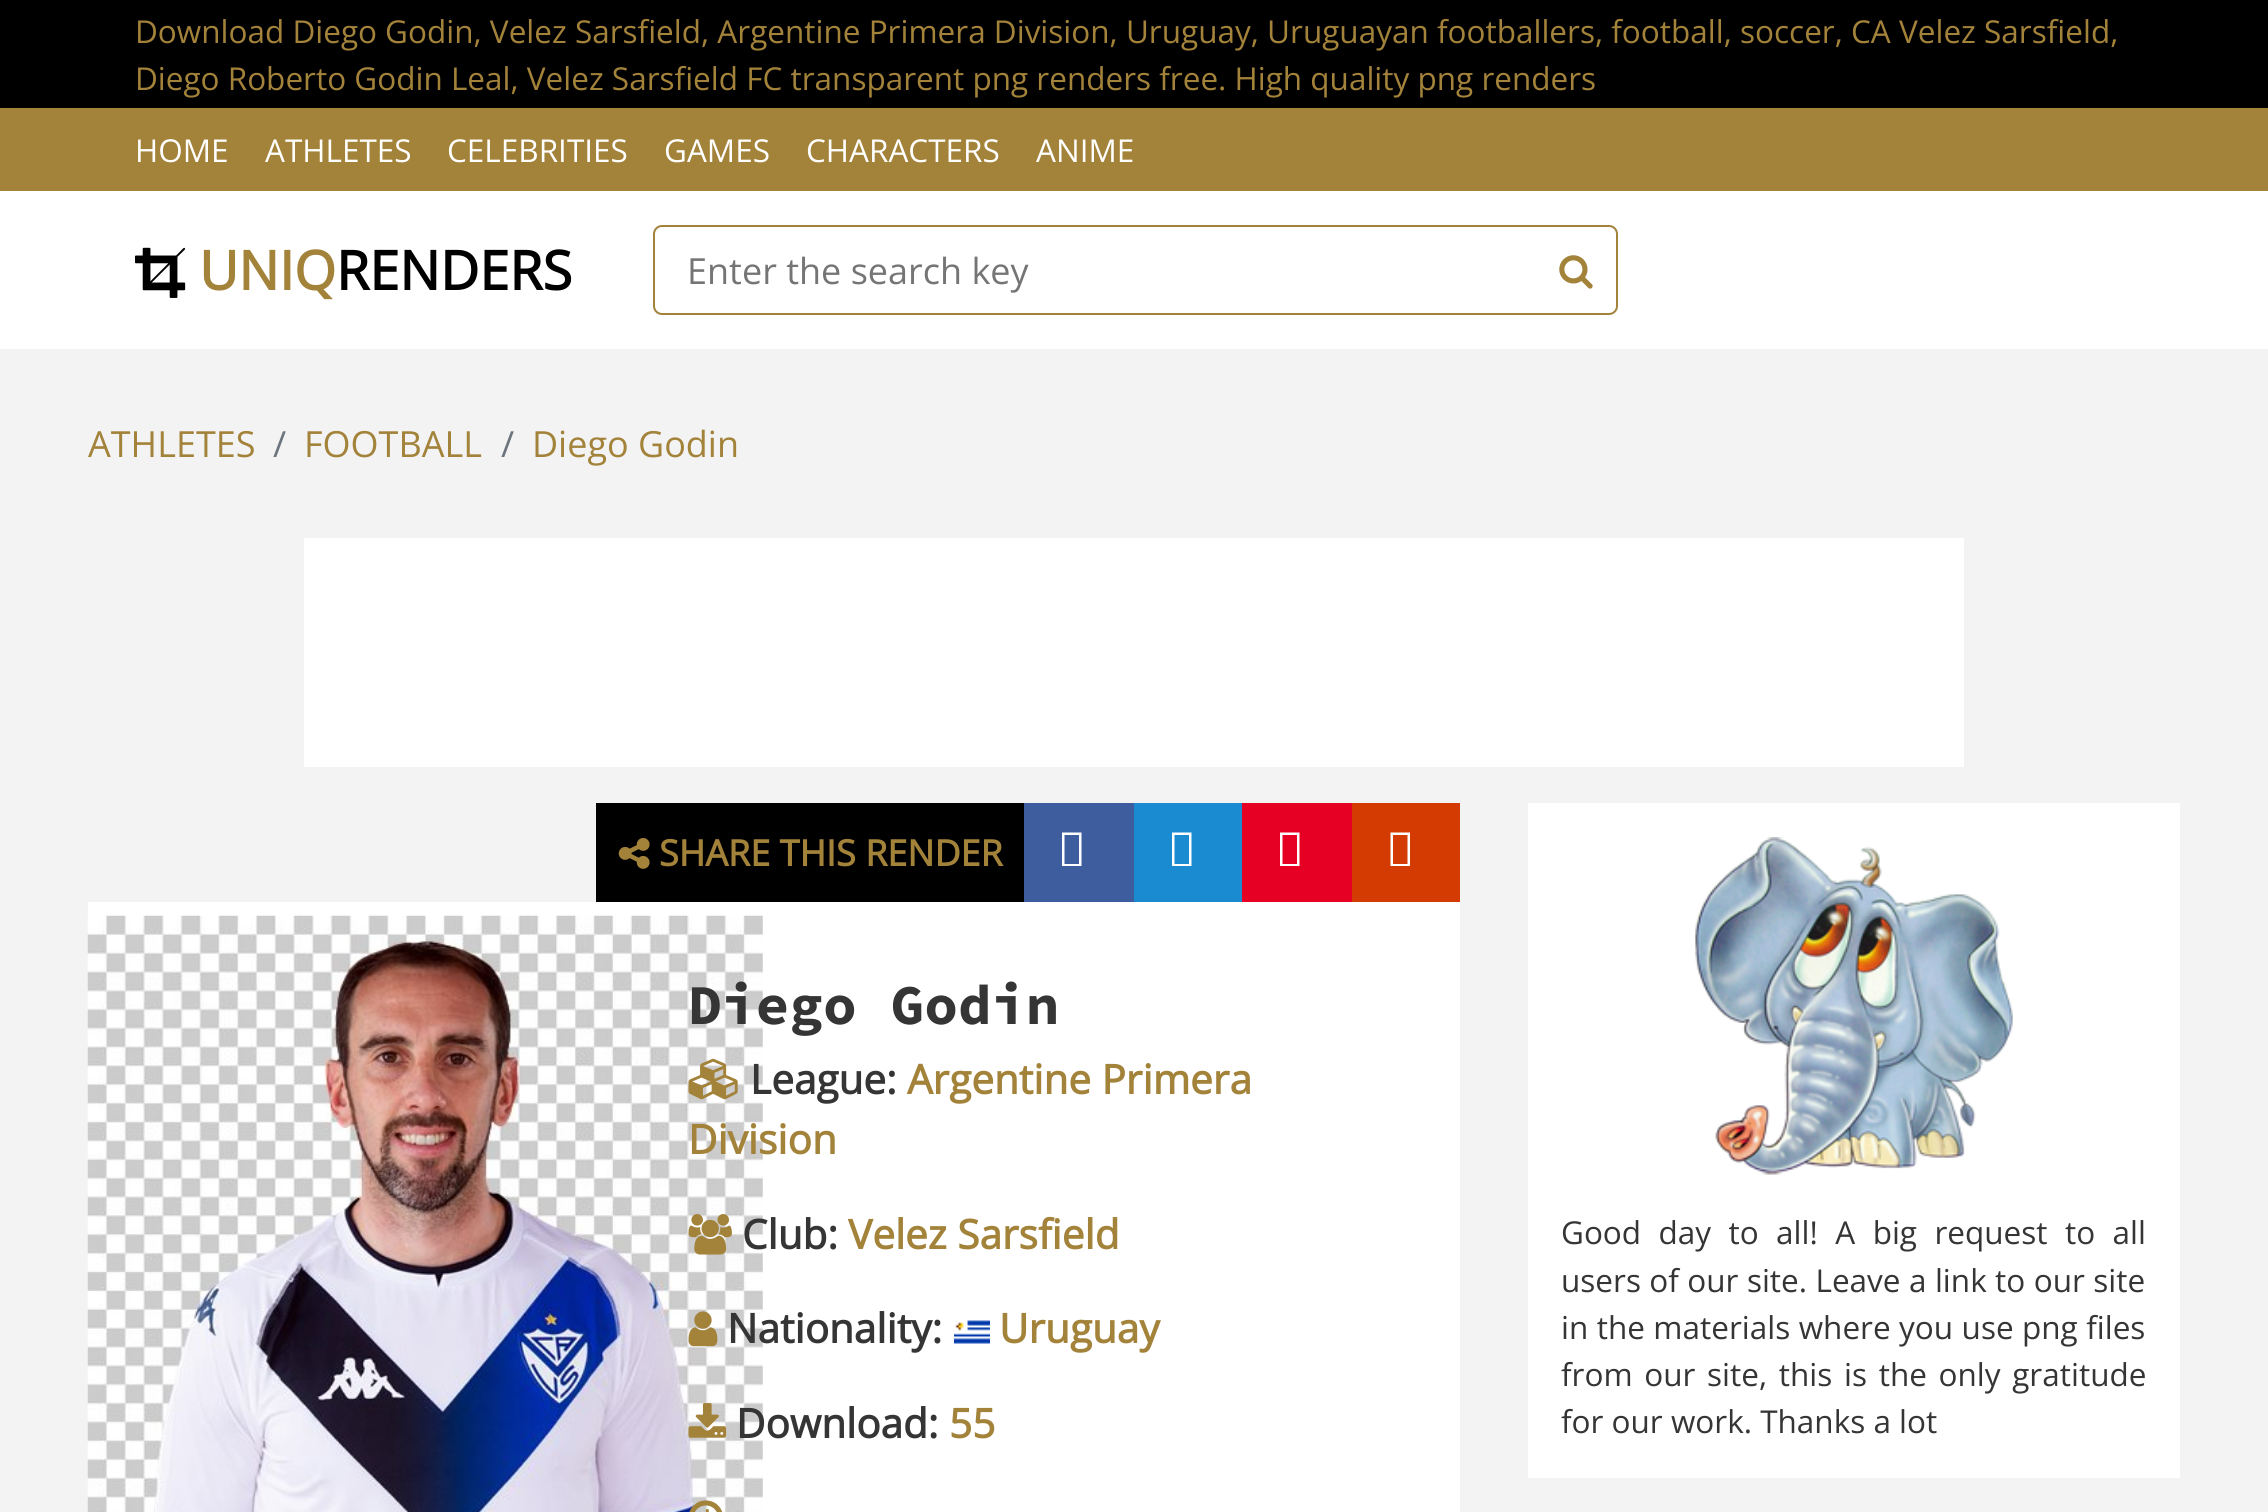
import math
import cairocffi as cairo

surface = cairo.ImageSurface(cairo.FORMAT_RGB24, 2268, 1512)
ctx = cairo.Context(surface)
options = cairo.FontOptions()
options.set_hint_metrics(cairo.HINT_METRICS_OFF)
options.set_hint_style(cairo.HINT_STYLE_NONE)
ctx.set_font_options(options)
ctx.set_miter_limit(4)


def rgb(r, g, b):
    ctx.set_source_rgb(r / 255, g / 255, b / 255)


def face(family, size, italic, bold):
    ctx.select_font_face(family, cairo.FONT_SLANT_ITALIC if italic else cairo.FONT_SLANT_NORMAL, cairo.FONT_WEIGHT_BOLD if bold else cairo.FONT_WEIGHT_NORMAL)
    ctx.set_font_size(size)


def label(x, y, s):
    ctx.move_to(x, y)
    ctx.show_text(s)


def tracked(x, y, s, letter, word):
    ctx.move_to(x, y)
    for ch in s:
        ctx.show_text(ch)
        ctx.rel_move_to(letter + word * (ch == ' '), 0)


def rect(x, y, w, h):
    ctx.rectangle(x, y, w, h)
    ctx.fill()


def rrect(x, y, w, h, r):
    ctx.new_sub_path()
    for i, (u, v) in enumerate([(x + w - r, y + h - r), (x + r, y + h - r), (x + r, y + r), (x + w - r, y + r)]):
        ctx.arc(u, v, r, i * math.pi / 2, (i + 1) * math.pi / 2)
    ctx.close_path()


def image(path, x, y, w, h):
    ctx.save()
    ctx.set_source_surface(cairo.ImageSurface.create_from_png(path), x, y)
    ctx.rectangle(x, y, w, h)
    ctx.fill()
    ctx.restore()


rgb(243, 243, 243)
ctx.paint()
rgb(0, 0, 0)
rect(0, 0, 2268, 108)
face('Open Sans', 31.5, 0, 0)
rgb(163, 130, 58)
label(135, 43, 'Download Diego Godin, Velez Sarsfield, Argentine Primera Division, Uruguay, Uruguayan footballers, football, soccer, CA Velez Sarsfield,')
label(135, 90, 'Diego Roberto Godin Leal, Velez Sarsfield FC transparent png renders free. High quality png renders')
rect(0, 108, 2268, 83)
rgb(255, 255, 255)
label(135, 162, 'HOME')
label(265, 162, 'ATHLETES')
label(447, 162, 'CELEBRITIES')
label(664, 162, 'GAMES')
label(806, 162, 'CHARACTERS')
label(1036, 162, 'ANIME')
rect(0, 191, 2268, 158)
image('image0.png', 135, 247, 51, 51)
face('Open Sans', 54, 0, 1)
rgb(163, 130, 58)
label(199, 290, 'UNIQ')
rgb(0, 0, 0)
label(336, 290, 'RENDERS')
rrect(654, 226, 963, 88, 8)
rgb(163, 130, 58)
ctx.stroke()
face('Open Sans', 36, 0, 0)
rgb(117, 117, 117)
label(687, 284, 'Enter the search key')
image('image1.png', 1559, 255, 34, 34)
rgb(163, 130, 58)
label(88, 457, 'ATHLETES')
rgb(108, 117, 125)
label(273, 457, '/')
rgb(163, 130, 58)
label(304, 457, 'FOOTBALL')
rgb(108, 117, 125)
label(501, 457, '/')
rgb(163, 130, 58)
label(532, 457, 'Diego Godin')
rgb(255, 255, 255)
rect(304, 538, 1660, 229)
rgb(0, 0, 0)
rect(596, 803, 428, 99)
image('image2.png', 618, 838, 32, 31)
face('Open Sans', 36, 0, 1)
rgb(163, 130, 58)
label(659, 866, 'SHARE THIS RENDER')
rgb(61, 93, 158)
rect(1024, 803, 110, 99)
rgb(255, 255, 255)
ctx.new_path()
ctx.move_to(1062, 866)
ctx.line_to(1062, 832.5)
ctx.line_to(1081.5, 832.5)
ctx.line_to(1081.5, 866)
ctx.close_path()
ctx.move_to(1064.5, 864)
ctx.line_to(1079, 864)
ctx.line_to(1079, 835)
ctx.line_to(1064.5, 835)
ctx.close_path()
ctx.fill()
rgb(26, 139, 208)
rect(1134, 803, 108, 99)
rgb(255, 255, 255)
ctx.new_path()
ctx.move_to(1172, 866)
ctx.line_to(1172, 832.5)
ctx.line_to(1191.5, 832.5)
ctx.line_to(1191.5, 866)
ctx.close_path()
ctx.move_to(1174.5, 864)
ctx.line_to(1189, 864)
ctx.line_to(1189, 835)
ctx.line_to(1174.5, 835)
ctx.close_path()
ctx.fill()
rgb(230, 0, 35)
rect(1242, 803, 110, 99)
rgb(255, 255, 255)
ctx.new_path()
ctx.move_to(1280, 866)
ctx.line_to(1280, 832.5)
ctx.line_to(1299.5, 832.5)
ctx.line_to(1299.5, 866)
ctx.close_path()
ctx.move_to(1282.5, 864)
ctx.line_to(1297, 864)
ctx.line_to(1297, 835)
ctx.line_to(1282.5, 835)
ctx.close_path()
ctx.fill()
rgb(212, 59, 2)
rect(1352, 803, 108, 99)
rgb(255, 255, 255)
ctx.new_path()
ctx.move_to(1390.5, 866)
ctx.line_to(1390.5, 832.5)
ctx.line_to(1410, 832.5)
ctx.line_to(1410, 866)
ctx.close_path()
ctx.move_to(1393, 864)
ctx.line_to(1407.5, 864)
ctx.line_to(1407.5, 835)
ctx.line_to(1393, 835)
ctx.close_path()
ctx.fill()
rect(88, 902, 1372, 610)
image('image3.png', 87, 915, 676, 597)
face('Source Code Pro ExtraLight', 56.25, 0, 1)
rgb(53, 53, 53)
label(688, 1024, 'Diego Godin')
image('image4.png', 688, 1058, 50, 42)
face('Open Sans', 40.5, 0, 1)
label(750, 1094, 'League:')
rgb(163, 130, 58)
label(907, 1094, 'Argentine Primera')
label(688, 1154, 'Division')
image('image5.png', 688, 1214, 44, 41)
rgb(53, 53, 53)
label(742, 1249, 'Club:')
rgb(163, 130, 58)
label(848, 1249, 'Velez Sarsfield')
image('image6.png', 688, 1311, 30, 36)
rgb(53, 53, 53)
label(727, 1343, 'Nationality:')
image('image7.png', 954, 1320, 36, 24)
rgb(163, 130, 58)
label(999, 1343, 'Uruguay')
image('image8.png', 688, 1403, 39, 35)
rgb(53, 53, 53)
label(736, 1438, 'Download:')
rgb(163, 130, 58)
label(949, 1438, '55')
image('image9.png', 689, 1500, 34, 12)
rgb(255, 255, 255)
rect(1528, 803, 652, 675)
image('image10.png', 1695, 837, 318, 338)
face('Open Sans', 31.5, 0, 0)
rgb(53, 53, 53)
tracked(1561, 1244, 'Good day to all! A big request to all', 0, 9.25)
tracked(1561, 1292, 'users of our site. Leave a link to our site', 0, 0.25)
tracked(1561, 1339, 'in the materials where you use png files', 0, 0.25)
tracked(1561, 1386, 'from our site, this is the only gratitude', 0, 3.5)
label(1561, 1433, 'for our work. Thanks a lot')
surface.write_to_png('render.png')
